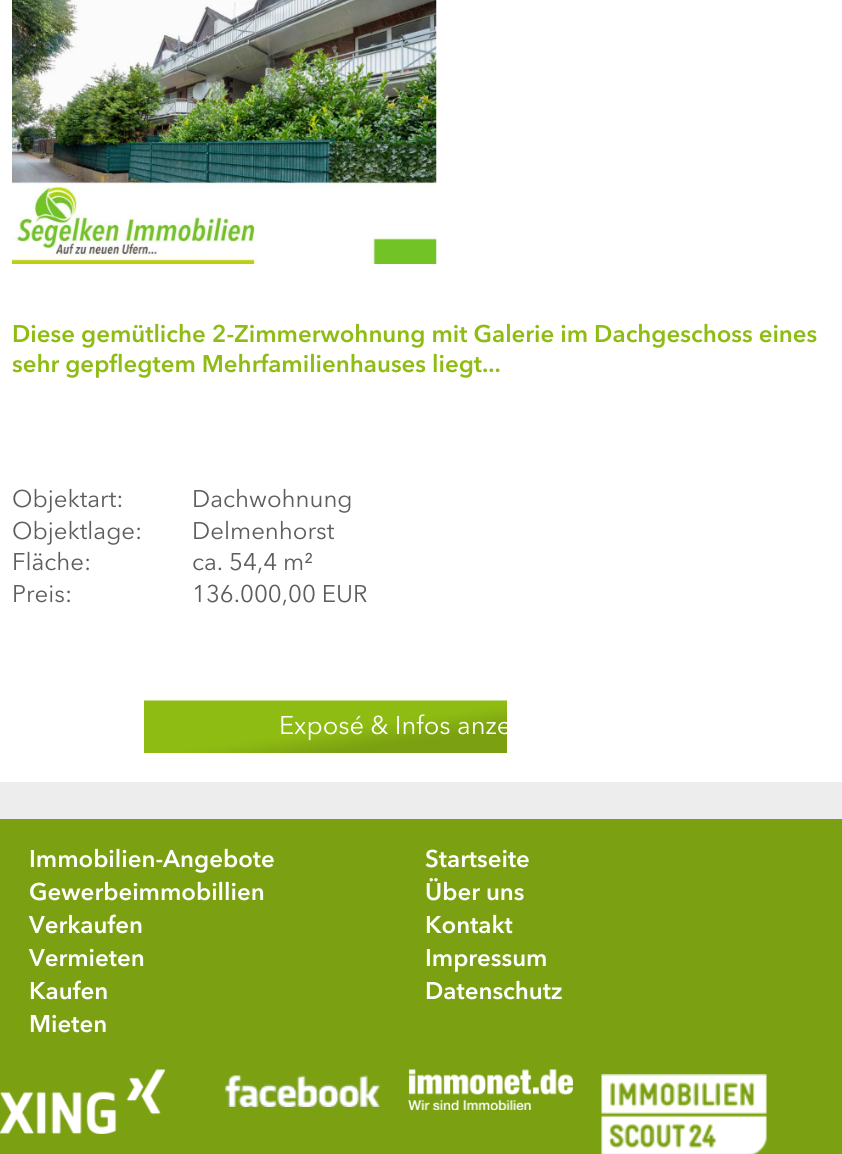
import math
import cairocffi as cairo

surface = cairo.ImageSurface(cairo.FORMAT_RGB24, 842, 1154)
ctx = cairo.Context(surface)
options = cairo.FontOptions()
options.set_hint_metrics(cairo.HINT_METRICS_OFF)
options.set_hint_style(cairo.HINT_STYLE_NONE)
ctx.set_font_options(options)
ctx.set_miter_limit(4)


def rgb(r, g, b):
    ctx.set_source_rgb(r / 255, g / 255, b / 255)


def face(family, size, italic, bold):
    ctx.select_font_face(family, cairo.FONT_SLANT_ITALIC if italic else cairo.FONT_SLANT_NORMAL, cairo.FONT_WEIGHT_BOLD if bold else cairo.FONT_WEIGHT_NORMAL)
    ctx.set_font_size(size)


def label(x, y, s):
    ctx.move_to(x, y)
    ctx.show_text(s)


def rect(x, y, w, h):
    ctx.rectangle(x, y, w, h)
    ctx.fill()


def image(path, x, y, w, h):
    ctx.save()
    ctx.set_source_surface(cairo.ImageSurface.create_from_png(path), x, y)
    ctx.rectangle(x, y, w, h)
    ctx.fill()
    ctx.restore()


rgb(237, 237, 237)
ctx.paint()
rgb(255, 255, 255)
rect(0, 0, 842, 782)
image('image0.png', 12, 0, 425, 264)
face('Avenir Next SemiBold', 24, 0, 0)
rgb(143, 188, 19)
label(12, 342, 'Diese gemütliche 2-Zimmerwohnung mit Galerie im Dachgeschoss eines')
label(12, 372, 'sehr gepflegtem Mehrfamilienhauses liegt...')
face('Avenir Next', 24, 0, 0)
rgb(93, 93, 93)
label(12, 507, 'Objektart:')
label(192, 507, 'Dachwohnung')
label(12, 539, 'Objektlage:')
label(192, 539, 'Delmenhorst')
label(12, 570, 'Fläche:')
label(192, 570, 'ca. 54,4 m²')
label(12, 602, 'Preis:')
label(192, 602, '136.000,00 EUR')
image('image1.png', 144, 700, 363, 53)
face('Avenir Next', 25.5, 0, 0)
rgb(255, 255, 255)
label(279, 734, 'Exposé & Infos anze')
rgb(123, 160, 18)
rect(0, 819, 842, 335)
face('Avenir Next SemiBold', 24, 0, 0)
rgb(255, 255, 255)
label(29, 867, 'Immobilien-Angebote')
label(29, 900, 'Gewerbeimmobillien')
label(29, 933, 'Verkaufen')
label(29, 966, 'Vermieten')
label(29, 999, 'Kaufen')
label(29, 1032, 'Mieten')
label(425, 867, 'Startseite')
label(425, 900, 'Über uns')
label(425, 933, 'Kontakt')
label(425, 966, 'Impressum')
label(425, 999, 'Datenschutz')
image('image2.png', 0, 1069, 165, 65)
image('image3.png', 225, 1075, 155, 32)
image('image4.png', 408, 1069, 165, 41)
image('image5.png', 601, 1074, 166, 80)
surface.write_to_png('render.png')
